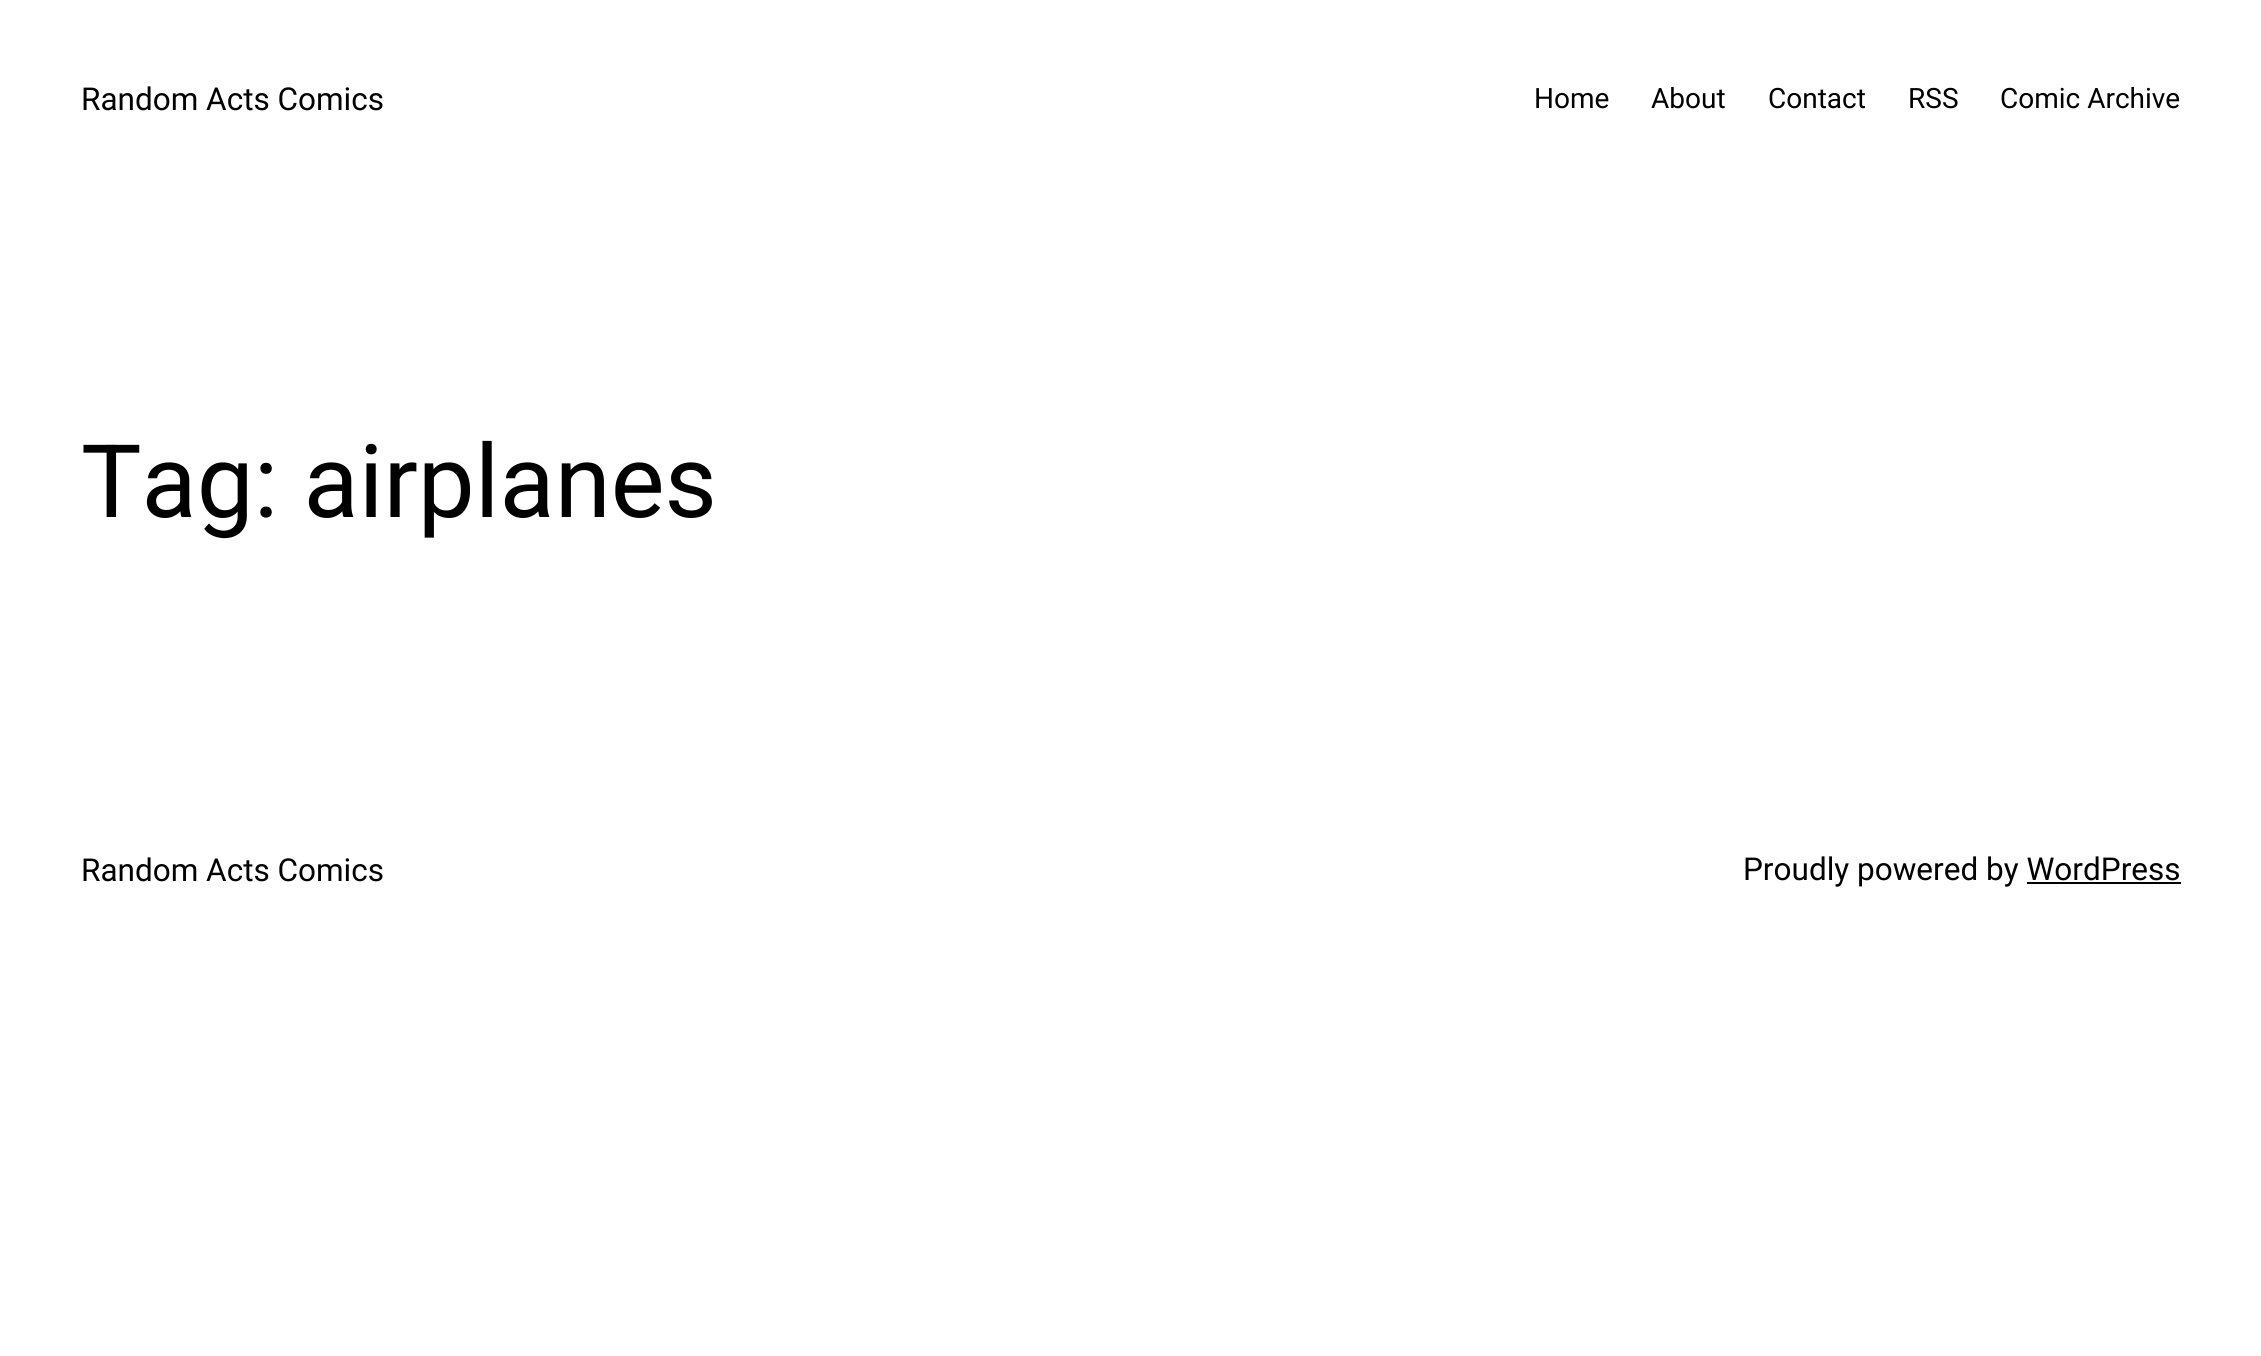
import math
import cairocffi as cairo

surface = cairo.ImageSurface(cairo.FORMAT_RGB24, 2261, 1356)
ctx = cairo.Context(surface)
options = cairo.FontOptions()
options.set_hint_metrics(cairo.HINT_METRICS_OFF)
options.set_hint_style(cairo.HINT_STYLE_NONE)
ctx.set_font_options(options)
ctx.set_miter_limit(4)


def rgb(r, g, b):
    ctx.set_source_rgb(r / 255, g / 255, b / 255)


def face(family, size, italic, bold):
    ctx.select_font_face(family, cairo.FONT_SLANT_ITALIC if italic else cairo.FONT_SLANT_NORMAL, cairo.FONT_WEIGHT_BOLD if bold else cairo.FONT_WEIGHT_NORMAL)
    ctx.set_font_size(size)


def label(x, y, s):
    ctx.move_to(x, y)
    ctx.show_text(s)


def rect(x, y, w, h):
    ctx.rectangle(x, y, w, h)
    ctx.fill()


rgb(255, 255, 255)
ctx.paint()
face('Roboto', 31.5, 0, 0)
rgb(0, 0, 0)
label(81, 110, 'Random Acts Comics')
face('Roboto', 28, 0, 0)
label(1534, 108, 'Home')
label(1651, 108, 'About')
label(1768, 108, 'Contact')
label(1908, 108, 'RSS')
label(2000, 108, 'Comic Archive')
face('Roboto', 101.5, 0, 0)
label(81, 517, 'Tag: airplanes')
face('Roboto', 31.5, 0, 0)
label(81, 881, 'Random Acts Comics')
label(1743, 880, 'Proudly powered by WordPress')
rect(2027, 882, 154, 2)
surface.write_to_png('render.png')
